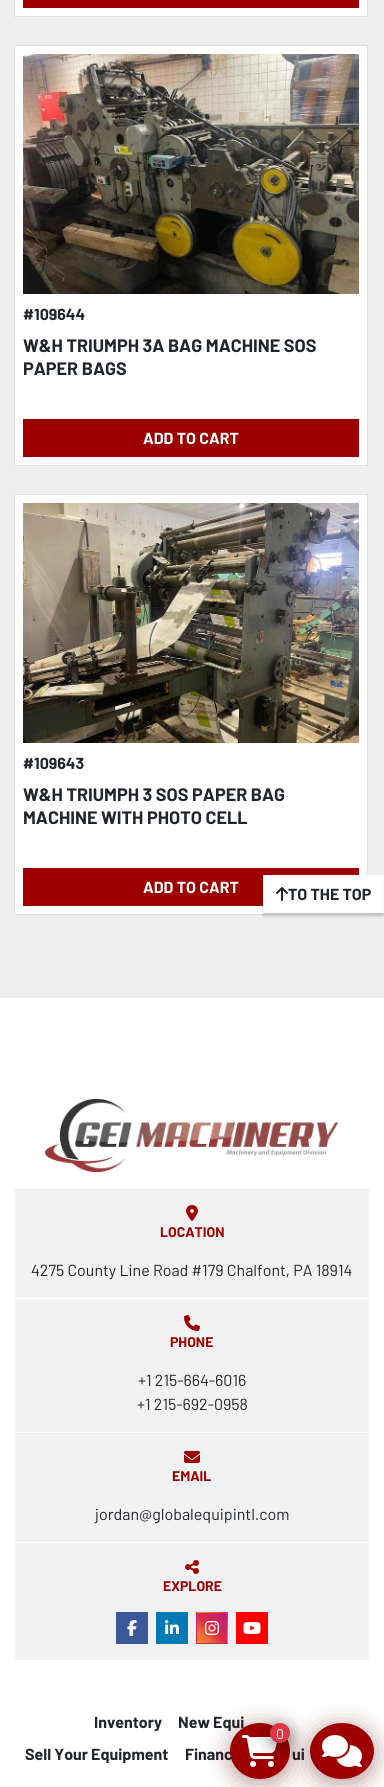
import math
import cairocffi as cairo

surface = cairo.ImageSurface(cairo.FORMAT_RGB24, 384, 1787)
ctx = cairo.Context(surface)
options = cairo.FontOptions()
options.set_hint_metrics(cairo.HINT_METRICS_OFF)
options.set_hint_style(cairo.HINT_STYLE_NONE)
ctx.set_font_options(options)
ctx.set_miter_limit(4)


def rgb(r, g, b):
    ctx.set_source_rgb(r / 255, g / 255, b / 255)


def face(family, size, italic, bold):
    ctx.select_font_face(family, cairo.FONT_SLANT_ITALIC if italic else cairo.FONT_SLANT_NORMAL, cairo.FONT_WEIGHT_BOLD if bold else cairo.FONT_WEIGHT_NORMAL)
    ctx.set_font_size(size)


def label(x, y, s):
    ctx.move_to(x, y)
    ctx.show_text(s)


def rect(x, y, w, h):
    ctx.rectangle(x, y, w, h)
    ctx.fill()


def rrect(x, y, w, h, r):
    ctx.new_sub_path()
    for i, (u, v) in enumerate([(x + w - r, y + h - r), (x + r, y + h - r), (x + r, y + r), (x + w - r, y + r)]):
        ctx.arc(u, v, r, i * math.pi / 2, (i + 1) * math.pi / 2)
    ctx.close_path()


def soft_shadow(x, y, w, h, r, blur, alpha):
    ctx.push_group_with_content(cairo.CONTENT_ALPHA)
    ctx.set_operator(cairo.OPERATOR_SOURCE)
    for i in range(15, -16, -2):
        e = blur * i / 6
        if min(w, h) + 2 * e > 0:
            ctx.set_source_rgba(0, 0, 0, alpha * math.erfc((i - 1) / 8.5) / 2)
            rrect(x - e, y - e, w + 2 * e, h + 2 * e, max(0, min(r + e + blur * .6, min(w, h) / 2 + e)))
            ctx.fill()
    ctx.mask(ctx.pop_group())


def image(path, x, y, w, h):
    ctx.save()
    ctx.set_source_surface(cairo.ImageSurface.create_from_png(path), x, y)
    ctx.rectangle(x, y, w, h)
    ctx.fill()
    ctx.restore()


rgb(238, 238, 238)
ctx.paint()
rgb(255, 255, 255)
ctx.rectangle(14.5, -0.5, 353, 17)
ctx.fill_preserve()
rgb(222, 226, 230)
ctx.set_line_width(1)
ctx.stroke()
rgb(158, 0, 0)
rect(23, 0, 336, 8)
rgb(255, 255, 255)
ctx.rectangle(14.5, 45.5, 353, 420)
ctx.fill_preserve()
rgb(222, 226, 230)
ctx.stroke()
image('image0.png', 23, 54, 336, 240)
face('Barlow', 16, 0, 1)
rgb(33, 37, 41)
label(23, 320, '#109644')
face('Barlow', 18, 0, 1)
label(23, 352, 'W&H TRIUMPH 3A BAG MACHINE SOS')
label(23, 375, 'PAPER BAGS')
rgb(158, 0, 0)
rect(23, 419, 336, 38)
face('Barlow', 16, 0, 1)
rgb(255, 255, 255)
label(143, 444, 'ADD TO CART')
ctx.rectangle(14.5, 494.5, 353, 420)
ctx.fill_preserve()
rgb(222, 226, 230)
ctx.stroke()
image('image1.png', 23, 503, 336, 240)
rgb(33, 37, 41)
label(23, 769, '#109643')
face('Barlow', 18, 0, 1)
label(23, 801, 'W&H TRIUMPH 3 SOS PAPER BAG')
label(23, 824, 'MACHINE WITH PHOTO CELL')
rgb(158, 0, 0)
rect(23, 868, 336, 38)
face('Barlow', 16, 0, 1)
rgb(255, 255, 255)
label(143, 893, 'ADD TO CART')
rgb(0, 0, 0)
soft_shadow(263, 878, 121, 38, 0, 1.5, 0.2)
rgb(255, 255, 255)
ctx.rectangle(263.5, 875.5, 120, 37)
ctx.fill_preserve()
rgb(248, 249, 250)
ctx.stroke()
image('image2.png', 276, 887, 12, 14)
rgb(33, 37, 41)
label(288, 900, 'TO THE TOP')
rgb(255, 255, 255)
rect(0, 998, 384, 789)
image('image3.png', 45, 1098, 294, 75)
rgb(242, 242, 242)
rect(15, 1189, 354, 471)
rgb(255, 255, 255)
rect(15, 1298, 354, 1)
image('image4.png', 186, 1205, 12, 16)
face('Barlow', 14, 0, 1)
rgb(158, 0, 0)
label(160, 1237, 'LOCATION')
face('Barlow', 16, 0, 0)
rgb(33, 37, 41)
label(31, 1276, '4275 County Line Road #179 Chalfont, PA 18914')
rgb(255, 255, 255)
rect(15, 1432, 354, 1)
image('image5.png', 184, 1315, 16, 16)
face('Barlow', 14, 0, 1)
rgb(158, 0, 0)
label(170, 1347, 'PHONE')
face('Barlow', 16, 0, 0)
rgb(33, 37, 41)
label(138, 1386, '+1 215-664-6016')
label(137, 1410, '+1 215-692-0958')
rgb(255, 255, 255)
rect(15, 1542, 354, 1)
image('image6.png', 184, 1451, 16, 12)
face('Barlow', 14, 0, 1)
rgb(158, 0, 0)
label(172, 1481, 'EMAIL')
face('Barlow', 16, 0, 0)
rgb(33, 37, 41)
label(95, 1520, 'jordan@globalequipintl.com')
image('image7.png', 185, 1560, 14, 14)
face('Barlow', 14, 0, 1)
rgb(158, 0, 0)
label(163, 1591, 'EXPLORE')
rgb(59, 89, 153)
rect(116, 1612, 32, 32)
image('image8.png', 127, 1620, 10, 16)
rgb(0, 123, 182)
rect(156, 1612, 32, 32)
image('image9.png', 165, 1620, 14, 14)
gradient = cairo.LinearGradient(167, 1613, 197, 1583)
gradient.add_color_stop_rgba(0, 0.941, 0.58, 0.2, 1)
gradient.add_color_stop_rgba(0.25, 0.902, 0.408, 0.235, 1)
gradient.add_color_stop_rgba(0.5, 0.863, 0.153, 0.263, 1)
gradient.add_color_stop_rgba(0.75, 0.8, 0.137, 0.4, 1)
gradient.add_color_stop_rgba(1, 0.737, 0.094, 0.533, 1)
ctx.set_source(gradient)
rect(196, 1612, 1, 1)
gradient = cairo.LinearGradient(197, 1613, 227, 1583)
gradient.add_color_stop_rgba(0, 0.941, 0.58, 0.2, 1)
gradient.add_color_stop_rgba(0.25, 0.902, 0.408, 0.235, 1)
gradient.add_color_stop_rgba(0.5, 0.863, 0.153, 0.263, 1)
gradient.add_color_stop_rgba(0.75, 0.8, 0.137, 0.4, 1)
gradient.add_color_stop_rgba(1, 0.737, 0.094, 0.533, 1)
ctx.set_source(gradient)
rect(197, 1612, 30, 1)
gradient = cairo.LinearGradient(227, 1613, 257, 1583)
gradient.add_color_stop_rgba(0, 0.941, 0.58, 0.2, 1)
gradient.add_color_stop_rgba(0.25, 0.902, 0.408, 0.235, 1)
gradient.add_color_stop_rgba(0.5, 0.863, 0.153, 0.263, 1)
gradient.add_color_stop_rgba(0.75, 0.8, 0.137, 0.4, 1)
gradient.add_color_stop_rgba(1, 0.737, 0.094, 0.533, 1)
ctx.set_source(gradient)
rect(227, 1612, 1, 1)
gradient = cairo.LinearGradient(167, 1643, 197, 1613)
gradient.add_color_stop_rgba(0, 0.941, 0.58, 0.2, 1)
gradient.add_color_stop_rgba(0.25, 0.902, 0.408, 0.235, 1)
gradient.add_color_stop_rgba(0.5, 0.863, 0.153, 0.263, 1)
gradient.add_color_stop_rgba(0.75, 0.8, 0.137, 0.4, 1)
gradient.add_color_stop_rgba(1, 0.737, 0.094, 0.533, 1)
ctx.set_source(gradient)
rect(196, 1613, 1, 30)
gradient = cairo.LinearGradient(197, 1643, 227, 1613)
gradient.add_color_stop_rgba(0, 0.941, 0.58, 0.2, 1)
gradient.add_color_stop_rgba(0.25, 0.902, 0.408, 0.235, 1)
gradient.add_color_stop_rgba(0.5, 0.863, 0.153, 0.263, 1)
gradient.add_color_stop_rgba(0.75, 0.8, 0.137, 0.4, 1)
gradient.add_color_stop_rgba(1, 0.737, 0.094, 0.533, 1)
ctx.set_source(gradient)
rect(197, 1613, 30, 30)
gradient = cairo.LinearGradient(227, 1643, 257, 1613)
gradient.add_color_stop_rgba(0, 0.941, 0.58, 0.2, 1)
gradient.add_color_stop_rgba(0.25, 0.902, 0.408, 0.235, 1)
gradient.add_color_stop_rgba(0.5, 0.863, 0.153, 0.263, 1)
gradient.add_color_stop_rgba(0.75, 0.8, 0.137, 0.4, 1)
gradient.add_color_stop_rgba(1, 0.737, 0.094, 0.533, 1)
ctx.set_source(gradient)
rect(227, 1613, 1, 30)
gradient = cairo.LinearGradient(167, 1673, 197, 1643)
gradient.add_color_stop_rgba(0, 0.941, 0.58, 0.2, 1)
gradient.add_color_stop_rgba(0.25, 0.902, 0.408, 0.235, 1)
gradient.add_color_stop_rgba(0.5, 0.863, 0.153, 0.263, 1)
gradient.add_color_stop_rgba(0.75, 0.8, 0.137, 0.4, 1)
gradient.add_color_stop_rgba(1, 0.737, 0.094, 0.533, 1)
ctx.set_source(gradient)
rect(196, 1643, 1, 1)
gradient = cairo.LinearGradient(197, 1673, 227, 1643)
gradient.add_color_stop_rgba(0, 0.941, 0.58, 0.2, 1)
gradient.add_color_stop_rgba(0.25, 0.902, 0.408, 0.235, 1)
gradient.add_color_stop_rgba(0.5, 0.863, 0.153, 0.263, 1)
gradient.add_color_stop_rgba(0.75, 0.8, 0.137, 0.4, 1)
gradient.add_color_stop_rgba(1, 0.737, 0.094, 0.533, 1)
ctx.set_source(gradient)
rect(197, 1643, 30, 1)
gradient = cairo.LinearGradient(227, 1673, 257, 1643)
gradient.add_color_stop_rgba(0, 0.941, 0.58, 0.2, 1)
gradient.add_color_stop_rgba(0.25, 0.902, 0.408, 0.235, 1)
gradient.add_color_stop_rgba(0.5, 0.863, 0.153, 0.263, 1)
gradient.add_color_stop_rgba(0.75, 0.8, 0.137, 0.4, 1)
gradient.add_color_stop_rgba(1, 0.737, 0.094, 0.533, 1)
ctx.set_source(gradient)
rect(227, 1643, 1, 1)
image('image10.png', 205, 1621, 14, 14)
rgb(255, 0, 0)
rect(236, 1612, 32, 32)
image('image11.png', 243, 1622, 18, 12)
face('Barlow', 16, 0, 1)
rgb(33, 37, 41)
label(94, 1728, 'Inventory')
label(178, 1728, 'New Equi')
label(25, 1760, 'Sell Your Equipment')
label(185, 1760, 'Financ')
label(292, 1760, 'ui')
rgb(82, 0, 0)
soft_shadow(230, 1727, 60, 56, 28, 12, 0.4)
rgb(158, 0, 0)
ctx.new_path()
ctx.move_to(260, 1723)
ctx.curve_to(276.5, 1723, 290, 1735.5, 290, 1751)
ctx.curve_to(290, 1766.5, 276.5, 1779, 260, 1779)
ctx.curve_to(243.5, 1779, 230, 1766.5, 230, 1751)
ctx.curve_to(230, 1735.5, 243.5, 1723, 260, 1723)
ctx.close_path()
ctx.fill()
image('image13.png', 242, 1735, 36, 32)
rgb(82, 0, 0)
soft_shadow(310, 1727, 64, 56, 28, 12, 0.4)
rgb(158, 0, 0)
ctx.new_path()
ctx.move_to(342, 1723)
ctx.curve_to(359.5, 1723, 374, 1735.5, 374, 1751)
ctx.curve_to(374, 1766.5, 359.5, 1779, 342, 1779)
ctx.curve_to(324.5, 1779, 310, 1766.5, 310, 1751)
ctx.curve_to(310, 1735.5, 324.5, 1723, 342, 1723)
ctx.close_path()
ctx.fill()
image('image12.png', 322, 1735, 40, 32)
rgb(0, 0, 0)
soft_shadow(270, 1727, 20, 20, 10, 8, 0.4)
rgb(220, 53, 69)
ctx.arc(280, 1733, 10, 0, 2 * math.pi)
ctx.fill()
face('Barlow', 14, 0, 0)
rgb(255, 255, 255)
label(276, 1739, '0')
surface.write_to_png('render.png')
